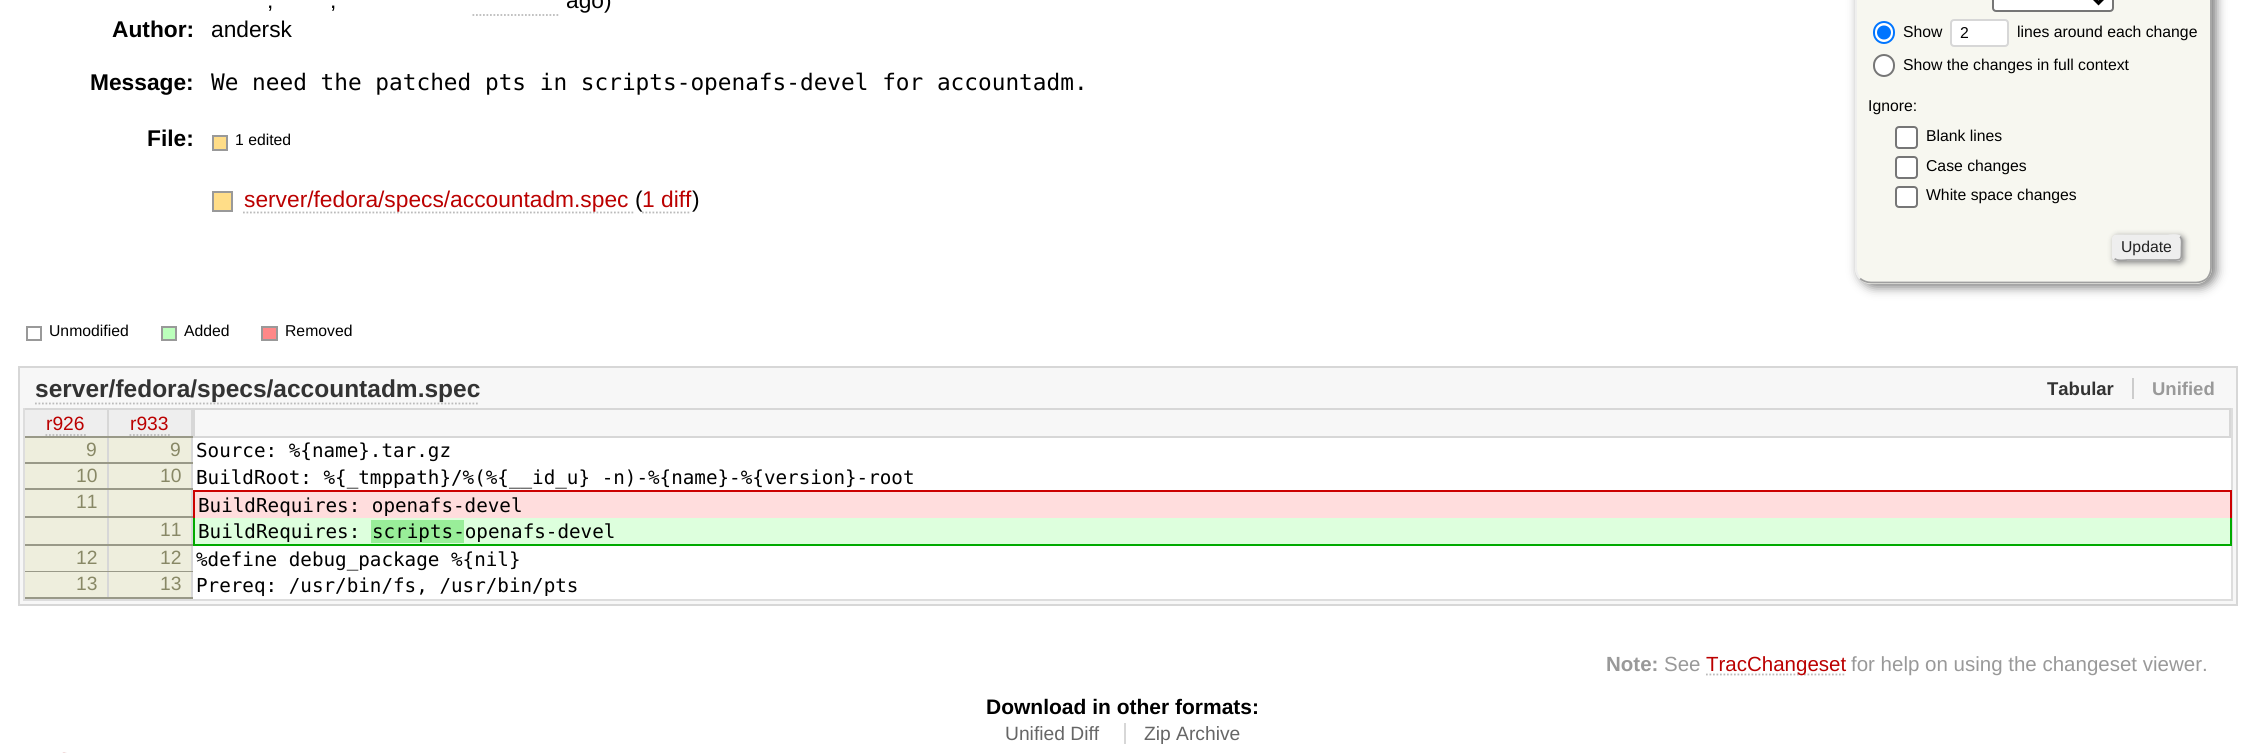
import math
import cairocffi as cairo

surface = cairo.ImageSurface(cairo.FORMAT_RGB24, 2244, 753)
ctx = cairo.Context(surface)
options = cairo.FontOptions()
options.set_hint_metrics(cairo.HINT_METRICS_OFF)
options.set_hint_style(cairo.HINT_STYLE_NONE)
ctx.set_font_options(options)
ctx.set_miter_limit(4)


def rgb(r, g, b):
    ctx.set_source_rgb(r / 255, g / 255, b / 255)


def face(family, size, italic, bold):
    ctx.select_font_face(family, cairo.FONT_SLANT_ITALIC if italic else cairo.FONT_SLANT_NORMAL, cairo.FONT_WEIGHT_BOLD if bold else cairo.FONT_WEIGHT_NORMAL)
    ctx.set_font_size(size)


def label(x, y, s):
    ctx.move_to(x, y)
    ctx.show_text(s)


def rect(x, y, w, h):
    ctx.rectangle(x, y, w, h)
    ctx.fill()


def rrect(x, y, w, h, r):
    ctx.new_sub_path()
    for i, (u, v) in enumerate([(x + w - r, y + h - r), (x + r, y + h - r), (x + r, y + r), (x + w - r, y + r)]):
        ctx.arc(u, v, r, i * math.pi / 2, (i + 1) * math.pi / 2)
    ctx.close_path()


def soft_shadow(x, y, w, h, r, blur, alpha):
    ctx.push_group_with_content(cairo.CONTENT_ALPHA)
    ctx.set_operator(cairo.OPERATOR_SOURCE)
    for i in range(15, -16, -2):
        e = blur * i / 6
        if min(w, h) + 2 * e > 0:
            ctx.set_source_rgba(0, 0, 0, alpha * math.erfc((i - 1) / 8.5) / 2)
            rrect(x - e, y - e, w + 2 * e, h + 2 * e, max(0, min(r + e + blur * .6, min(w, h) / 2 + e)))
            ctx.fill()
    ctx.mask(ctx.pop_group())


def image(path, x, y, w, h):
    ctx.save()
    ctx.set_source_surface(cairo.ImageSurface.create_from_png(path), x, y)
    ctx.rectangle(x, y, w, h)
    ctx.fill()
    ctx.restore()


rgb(255, 255, 255)
ctx.paint()
face('Liberation Sans', 22.75, 0, 0)
rgb(0, 0, 0)
label(267, 8, ',')
label(330, 8, ',')
label(566, 8, 'ago)')
ctx.new_path()
ctx.move_to(472.5, 15)
ctx.line_to(560, 15)
rgb(187, 187, 187)
ctx.set_line_width(1.8)
ctx.set_dash([1.75, 1.75])
ctx.stroke()
face('Liberation Sans', 22.75, 0, 1)
rgb(0, 0, 0)
label(112, 37, 'Author:')
face('Liberation Sans', 22.75, 0, 0)
label(211, 37, 'andersk')
face('Liberation Sans', 22.75, 0, 1)
label(90, 90, 'Message:')
face('DejaVu Sans Mono', 22.75, 0, 0)
label(211, 90, 'We need the patched pts in scripts-openafs-devel for accountadm.')
face('Liberation Sans', 22.75, 0, 1)
label(147, 146, 'File:')
rgb(255, 221, 136)
ctx.rectangle(213, 136, 14, 14)
ctx.fill_preserve()
rgb(153, 153, 153)
ctx.set_line_width(2)
ctx.set_dash([])
ctx.stroke()
face('Liberation Sans', 15.75, 0, 0)
rgb(0, 0, 0)
label(235, 145, '1 edited')
rgb(255, 221, 136)
ctx.rectangle(213, 192, 19, 19)
ctx.fill_preserve()
rgb(153, 153, 153)
ctx.stroke()
ctx.new_path()
ctx.move_to(243, 212.5)
ctx.line_to(635, 212.5)
rgb(187, 187, 187)
ctx.set_line_width(1.8)
ctx.set_dash([1.75, 1.75])
ctx.stroke()
face('Liberation Sans', 22.75, 0, 0)
rgb(187, 0, 0)
label(244, 207, 'server/fedora/specs/accountadm.spec')
rgb(0, 0, 0)
label(635, 207, '(')
rgb(187, 0, 0)
label(642, 207, '1 diff')
ctx.new_path()
ctx.move_to(642, 212.5)
ctx.line_to(691, 212.5)
rgb(187, 187, 187)
ctx.stroke()
rgb(0, 0, 0)
label(692, 207, ')')
rgb(119, 119, 119)
soft_shadow(1859, -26, 357, 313, 16, 5.5, 1)
rgb(247, 247, 240)
rrect(1855, -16, 357, 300, 16)
ctx.fill()
ctx.new_path()
ctx.move_to(2207, -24.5)
ctx.curve_to(2209.5, -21.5, 2211, -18, 2211, -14)
ctx.line_to(2211, 268)
ctx.curve_to(2211, 271.5, 2209.5, 275.5, 2207, 278.5)
ctx.curve_to(2204, 281, 2200, 282.5, 2196, 282.5)
ctx.line_to(1871, 282.5)
ctx.curve_to(1867, 282.5, 1863, 281, 1860, 278.5)
rgb(159, 159, 159)
ctx.set_dash([])
ctx.stroke()
ctx.new_path()
ctx.move_to(1860, 278.5)
ctx.curve_to(1857.5, 275.5, 1856, 271.5, 1856, 268)
ctx.line_to(1856, -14)
ctx.curve_to(1856, -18, 1857.5, -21.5, 1860, -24.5)
ctx.curve_to(1863, -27.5, 1867, -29, 1871, -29)
ctx.line_to(2196, -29)
ctx.curve_to(2200, -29, 2204, -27.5, 2207, -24.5)
rgb(238, 238, 238)
ctx.stroke()
rgb(255, 255, 255)
rrect(1993, -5, 120, 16, 3)
ctx.fill_preserve()
rgb(118, 118, 118)
ctx.set_line_width(2)
ctx.stroke()
ctx.new_path()
ctx.move_to(2091.5, -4)
ctx.line_to(2098.5, 3)
ctx.line_to(2105.5, -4)
rgb(0, 0, 0)
ctx.set_line_width(3.5)
ctx.stroke()
rgb(255, 255, 255)
rrect(1874, 22, 20, 21, 10)
ctx.fill_preserve()
rgb(0, 117, 255)
ctx.set_line_width(2)
ctx.stroke()
ctx.arc(1884, 32.5, 7, 0, 2 * math.pi)
ctx.fill()
face('Liberation Sans', 15.75, 0, 0)
rgb(0, 0, 0)
label(1903, 37, 'Show')
rgb(255, 255, 255)
rrect(1951, 20, 57, 26, 3)
ctx.fill_preserve()
rgb(215, 215, 215)
ctx.stroke()
rgb(0, 0, 0)
label(1960, 38, '2')
label(2017, 37, 'lines around each change')
rgb(255, 255, 255)
rrect(1874, 55, 20, 21, 10)
ctx.fill_preserve()
rgb(118, 118, 118)
ctx.stroke()
rgb(0, 0, 0)
label(1903, 70, 'Show the changes in full context')
label(1868, 111, 'Ignore:')
rgb(255, 255, 255)
rrect(1896, 127, 21, 21, 3)
ctx.fill_preserve()
rgb(118, 118, 118)
ctx.stroke()
rgb(0, 0, 0)
label(1926, 141, 'Blank lines')
rgb(255, 255, 255)
rrect(1896, 157, 21, 21, 3)
ctx.fill_preserve()
rgb(118, 118, 118)
ctx.stroke()
rgb(0, 0, 0)
label(1926, 171, 'Case changes')
rgb(255, 255, 255)
rrect(1896, 187, 21, 20, 3)
ctx.fill_preserve()
rgb(118, 118, 118)
ctx.stroke()
rgb(0, 0, 0)
label(1926, 200, 'White space changes')
rgb(136, 136, 136)
soft_shadow(2114, 236, 70, 27, 4, 3, 1)
rgb(238, 238, 238)
rrect(2112, 235, 70, 26, 4)
ctx.fill()
ctx.new_path()
ctx.move_to(2180, 236.5)
ctx.curve_to(2182.5, 239, 2181.5, 245, 2181.5, 247.5)
ctx.curve_to(2181.5, 261.5, 2182.5, 260, 2167.5, 260)
ctx.line_to(2127, 260)
ctx.curve_to(2126.5, 260, 2117, 261.5, 2114.5, 258.5)
rgb(159, 159, 159)
ctx.set_line_width(1.8)
ctx.stroke()
ctx.new_path()
ctx.move_to(2114.5, 258.5)
ctx.curve_to(2112, 256.5, 2113, 250.5, 2113, 247.5)
ctx.curve_to(2113, 233.5, 2112, 235.5, 2127, 235.5)
ctx.line_to(2167.5, 235.5)
ctx.curve_to(2168, 235.5, 2177.5, 234, 2180, 236.5)
rgb(238, 238, 238)
ctx.stroke()
rgb(34, 34, 34)
label(2121, 252, 'Update')
ctx.rectangle(27, 327, 14, 13)
rgb(153, 153, 153)
ctx.set_line_width(2)
ctx.stroke()
rgb(0, 0, 0)
label(49, 336, 'Unmodified')
rgb(187, 255, 187)
ctx.rectangle(162, 327, 14, 13)
ctx.fill_preserve()
rgb(153, 153, 153)
ctx.stroke()
rgb(0, 0, 0)
label(184, 336, 'Added')
rgb(255, 136, 136)
ctx.rectangle(262, 327, 15, 13)
ctx.fill_preserve()
rgb(153, 153, 153)
ctx.stroke()
rgb(0, 0, 0)
label(285, 336, 'Removed')
rgb(247, 247, 247)
ctx.rectangle(19, 367, 2218, 238)
ctx.fill_preserve()
rgb(215, 215, 215)
ctx.stroke()
ctx.new_path()
ctx.move_to(35, 403.5)
ctx.line_to(479.5, 403.5)
rgb(187, 187, 187)
ctx.set_line_width(1.8)
ctx.set_dash([1.75, 1.75])
ctx.stroke()
face('Liberation Sans', 24.5, 0, 1)
rgb(51, 51, 51)
label(35, 397, 'server/fedora/specs/accountadm.spec')
face('Liberation Sans', 18.5, 0, 1)
label(2047, 395, 'Tabular')
rgb(153, 153, 153)
label(2152, 395, 'Unified')
rgb(204, 204, 204)
rect(2132, 378, 2, 21)
rgb(221, 221, 221)
rect(2231, 408, 2, 192)
rect(23, 599, 2210, 2)
rect(23, 408, 2, 192)
rgb(238, 238, 238)
rect(25, 410, 82, 26)
rgb(215, 215, 215)
rect(25, 408, 168, 2)
rect(107, 408, 2, 191)
rgb(153, 153, 136)
rect(25, 436, 84, 2)
face('Liberation Sans', 19.25, 0, 0)
rgb(187, 0, 0)
label(46, 430, 'r926')
ctx.new_path()
ctx.move_to(45.5, 435)
ctx.line_to(86, 435)
rgb(187, 187, 187)
ctx.stroke()
rgb(238, 238, 238)
rect(109, 410, 82, 26)
rgb(215, 215, 215)
rect(191, 408, 2, 191)
rgb(153, 153, 136)
rect(109, 436, 84, 2)
rgb(187, 0, 0)
label(130, 430, 'r933')
ctx.new_path()
ctx.move_to(129.5, 435)
ctx.line_to(170, 435)
rgb(187, 187, 187)
ctx.stroke()
ctx.rectangle(194, 409, 2036, 28)
rgb(215, 215, 215)
ctx.set_line_width(2)
ctx.set_dash([])
ctx.stroke()
rgb(238, 238, 221)
rect(25, 438, 82, 24)
rgb(153, 153, 136)
rect(25, 462, 168, 2)
rgb(136, 136, 102)
label(86, 456, '9')
rgb(238, 238, 221)
rect(109, 438, 82, 24)
rgb(136, 136, 102)
label(170, 456, '9')
rgb(255, 255, 255)
rect(193, 438, 2038, 52)
face('DejaVu Sans Mono', 19.25, 0, 0)
rgb(0, 0, 0)
label(196, 457, 'Source: %{name}.tar.gz')
rgb(238, 238, 221)
rect(25, 464, 82, 24)
rgb(153, 153, 136)
rect(25, 488, 168, 2)
face('Liberation Sans', 19.25, 0, 0)
rgb(136, 136, 102)
label(76, 482, '10')
rgb(238, 238, 221)
rect(109, 464, 82, 24)
rgb(136, 136, 102)
label(160, 482, '10')
face('DejaVu Sans Mono', 19.25, 0, 0)
rgb(0, 0, 0)
label(196, 484, 'BuildRoot: %{_tmppath}/%(%{__id_u} -n)-%{name}-%{version}-root')
rgb(238, 238, 221)
rect(25, 490, 82, 26)
rgb(153, 153, 136)
rect(25, 516, 168, 2)
face('Liberation Sans', 19.25, 0, 0)
rgb(136, 136, 102)
label(76, 508, '11')
rgb(238, 238, 221)
rect(109, 490, 82, 26)
rgb(255, 221, 221)
rect(195, 492, 2035, 26)
rgb(204, 0, 0)
rect(193, 490, 2038, 2)
rect(2230, 490, 2, 28)
rect(193, 490, 2, 28)
face('DejaVu Sans Mono', 19.25, 0, 0)
rgb(0, 0, 0)
label(198, 512, 'BuildRequires: openafs-devel')
rgb(238, 238, 221)
rect(25, 518, 82, 26)
rgb(153, 153, 136)
rect(25, 544, 168, 2)
rgb(238, 238, 221)
rect(109, 518, 82, 26)
face('Liberation Sans', 19.25, 0, 0)
rgb(136, 136, 102)
label(160, 536, '11')
rgb(221, 255, 221)
rect(195, 518, 2035, 26)
rgb(0, 170, 0)
rect(2230, 518, 2, 28)
rect(193, 544, 2038, 2)
rect(193, 518, 2, 28)
face('DejaVu Sans Mono', 19.25, 0, 0)
rgb(0, 0, 0)
label(198, 538, 'BuildRequires:')
rgb(153, 238, 153)
rect(371, 520, 93, 23)
rgb(0, 0, 0)
label(372, 538, 'scripts-openafs-devel')
rgb(238, 238, 221)
rect(25, 546, 82, 25)
rgb(153, 153, 136)
rect(25, 571, 168, 1)
face('Liberation Sans', 19.25, 0, 0)
rgb(136, 136, 102)
label(76, 564, '12')
rgb(238, 238, 221)
rect(109, 546, 82, 25)
rgb(136, 136, 102)
label(160, 564, '12')
rgb(255, 255, 255)
rect(193, 546, 2038, 53)
face('DejaVu Sans Mono', 19.25, 0, 0)
rgb(0, 0, 0)
label(196, 566, '%define debug_package %{nil}')
rgb(238, 238, 221)
rect(25, 572, 82, 25)
rgb(153, 153, 136)
rect(25, 597, 168, 2)
face('Liberation Sans', 19.25, 0, 0)
rgb(136, 136, 102)
label(76, 590, '13')
rgb(238, 238, 221)
rect(109, 572, 82, 25)
rgb(136, 136, 102)
label(160, 590, '13')
face('DejaVu Sans Mono', 19.25, 0, 0)
rgb(0, 0, 0)
label(196, 592, 'Prereq: /usr/bin/fs, /usr/bin/pts')
face('Liberation Sans', 20.5, 0, 1)
rgb(153, 153, 153)
label(1606, 671, 'Note:')
face('Liberation Sans', 20.5, 0, 0)
label(1664, 671, 'See')
ctx.new_path()
ctx.move_to(1706, 674.5)
ctx.line_to(1846, 674.5)
rgb(187, 187, 187)
ctx.set_line_width(1.8)
ctx.set_dash([1.75, 1.75])
ctx.stroke()
rgb(187, 0, 0)
label(1706, 671, 'TracChangeset')
rgb(153, 153, 153)
label(1851, 671, 'for help on using the changeset viewer.')
face('Liberation Sans', 21, 0, 1)
rgb(0, 0, 0)
label(986, 714, 'Download in other formats:')
face('Liberation Sans', 19.25, 0, 0)
rgb(102, 102, 102)
label(1005, 740, 'Unified Diff')
rgb(215, 215, 215)
rect(1124, 723, 2, 21)
rgb(102, 102, 102)
label(1144, 740, 'Zip Archive')
image('image0.png', 62, 752, 5, 1)
surface.write_to_png('render.png')
